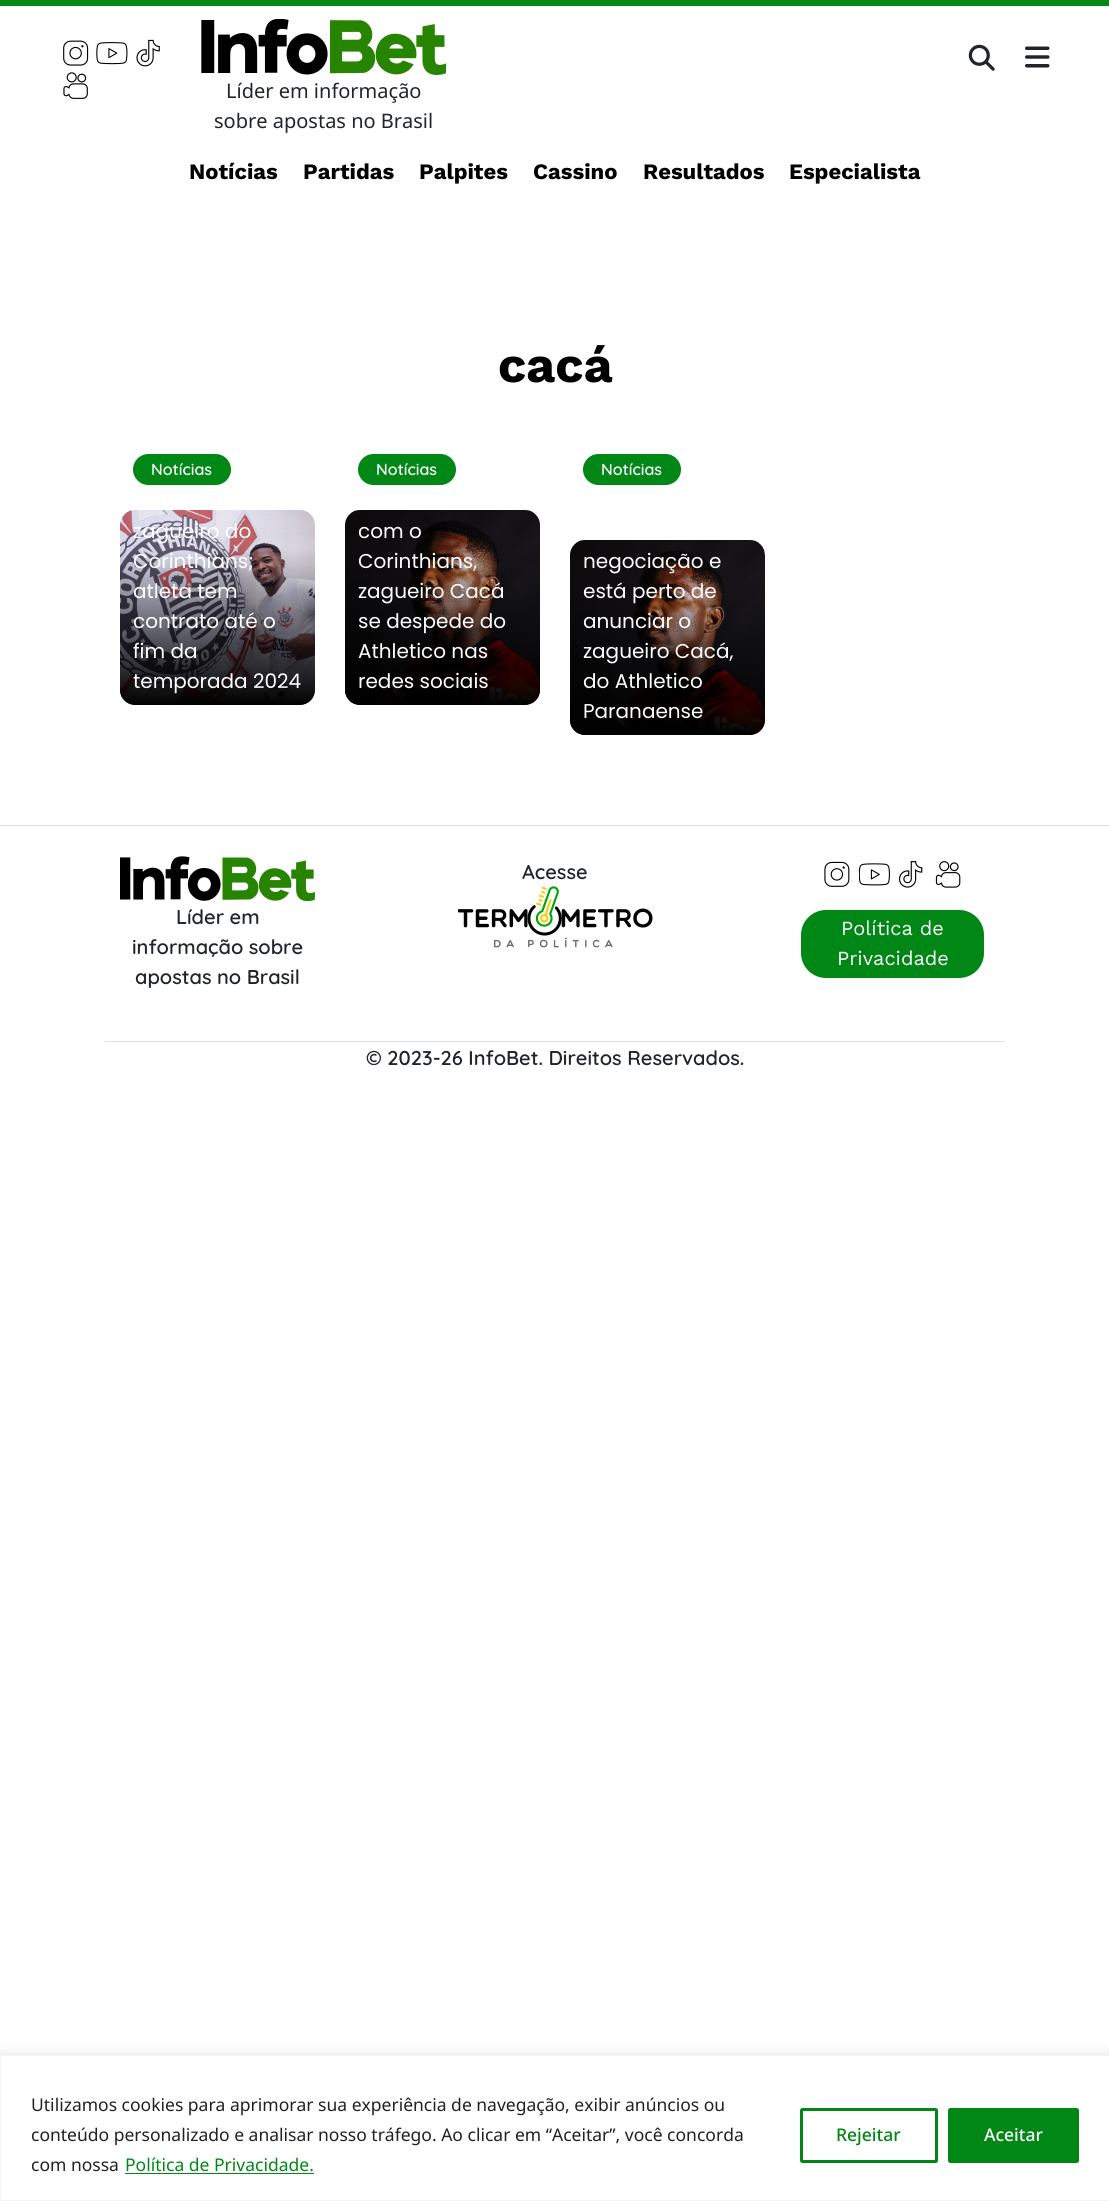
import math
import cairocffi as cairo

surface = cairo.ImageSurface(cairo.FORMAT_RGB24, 1109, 2201)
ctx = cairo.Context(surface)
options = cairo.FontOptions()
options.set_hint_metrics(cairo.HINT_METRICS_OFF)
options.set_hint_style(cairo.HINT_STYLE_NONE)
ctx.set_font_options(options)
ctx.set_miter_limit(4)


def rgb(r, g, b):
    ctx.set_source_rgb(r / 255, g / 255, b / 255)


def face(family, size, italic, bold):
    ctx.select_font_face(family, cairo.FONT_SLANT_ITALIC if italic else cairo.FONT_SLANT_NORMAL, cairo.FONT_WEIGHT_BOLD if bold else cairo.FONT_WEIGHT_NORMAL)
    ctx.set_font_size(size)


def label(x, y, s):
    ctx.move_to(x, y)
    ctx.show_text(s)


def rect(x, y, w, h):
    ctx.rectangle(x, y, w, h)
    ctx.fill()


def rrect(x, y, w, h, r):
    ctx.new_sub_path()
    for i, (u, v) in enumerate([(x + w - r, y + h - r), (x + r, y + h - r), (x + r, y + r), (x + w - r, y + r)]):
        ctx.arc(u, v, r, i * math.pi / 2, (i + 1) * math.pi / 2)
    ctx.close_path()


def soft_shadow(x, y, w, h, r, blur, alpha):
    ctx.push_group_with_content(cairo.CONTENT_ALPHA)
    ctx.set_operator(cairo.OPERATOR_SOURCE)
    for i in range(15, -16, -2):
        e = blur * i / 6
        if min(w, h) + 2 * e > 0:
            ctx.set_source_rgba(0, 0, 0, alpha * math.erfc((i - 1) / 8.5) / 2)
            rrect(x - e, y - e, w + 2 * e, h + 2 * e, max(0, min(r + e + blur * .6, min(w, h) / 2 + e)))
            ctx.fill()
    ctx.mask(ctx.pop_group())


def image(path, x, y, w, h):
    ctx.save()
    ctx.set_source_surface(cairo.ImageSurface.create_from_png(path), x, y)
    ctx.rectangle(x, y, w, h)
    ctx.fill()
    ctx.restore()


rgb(255, 255, 255)
ctx.paint()
rgb(0, 135, 22)
rect(0, 0, 1109, 6)
image('image0.png', 63, 40, 26, 26)
image('image1.png', 96, 42, 32, 23)
image('image2.png', 136, 39, 24, 28)
image('image3.png', 63, 72, 25, 27)
image('image4.png', 968, 44, 27, 27)
image('image5.png', 1025, 46, 25, 22)
image('image6.png', 201, 19, 246, 56)
face('Noto Sans', 20, 0, 0)
rgb(33, 37, 41)
label(226, 98, 'Líder em informação')
label(214, 128, 'sobre apostas no Brasil')
face('Work Sans', 22, 0, 1)
rgb(0, 0, 0)
label(189, 179, 'Notícias')
label(303, 179, 'Partidas')
label(419, 179, 'Palpites')
label(533, 179, 'Cassino')
label(643, 179, 'Resultados')
label(789, 179, 'Especialista')
face('Work Sans', 50, 0, 1)
label(498, 382, 'cacá')
image('image7.png', 120, 510, 195, 195)
gradient = cairo.LinearGradient(218, 705, 218, 510)
gradient.add_color_stop_rgba(0, 0, 0, 0, 1)
gradient.add_color_stop_rgba(0.8, 0, 0, 0, 0)
ctx.set_source(gradient)
rrect(120, 510, 195, 195, 15)
ctx.fill()
rgb(0, 135, 22)
rrect(133, 454, 98, 31, 15.5)
ctx.fill()
face('Quicksand SemiBold', 16, 0, 0)
rgb(255, 255, 255)
label(151, 475, 'Notícias')
face('Poppins', 20, 0, 0)
label(133, 538, 'zagueiro do')
label(133, 568, 'Corinthians;')
label(133, 598, 'atleta tem')
label(133, 628, 'contrato até o')
label(133, 658, 'fim da')
label(133, 688, 'temporada 2024')
image('image8.png', 345, 510, 195, 195)
gradient = cairo.LinearGradient(443, 705, 443, 510)
gradient.add_color_stop_rgba(0, 0, 0, 0, 1)
gradient.add_color_stop_rgba(0.8, 0, 0, 0, 0)
ctx.set_source(gradient)
rrect(345, 510, 195, 195, 15)
ctx.fill()
rgb(0, 135, 22)
rrect(358, 454, 98, 31, 15.5)
ctx.fill()
face('Quicksand SemiBold', 16, 0, 0)
rgb(255, 255, 255)
label(376, 475, 'Notícias')
face('Poppins', 20, 0, 0)
label(358, 538, 'com o')
label(358, 568, 'Corinthians,')
label(358, 598, 'zagueiro Cacá')
label(358, 628, 'se despede do')
label(358, 658, 'Athletico nas')
label(358, 688, 'redes sociais')
image('image9.png', 570, 540, 195, 195)
gradient = cairo.LinearGradient(668, 735, 668, 540)
gradient.add_color_stop_rgba(0, 0, 0, 0, 1)
gradient.add_color_stop_rgba(0.8, 0, 0, 0, 0)
ctx.set_source(gradient)
rrect(570, 540, 195, 195, 15)
ctx.fill()
rgb(0, 135, 22)
rrect(583, 454, 98, 31, 15.5)
ctx.fill()
face('Quicksand SemiBold', 16, 0, 0)
rgb(255, 255, 255)
label(601, 475, 'Notícias')
face('Poppins', 20, 0, 0)
label(583, 568, 'negociação e')
label(583, 598, 'está perto de')
label(583, 628, 'anunciar o')
label(583, 658, 'zagueiro Cacá,')
label(583, 688, 'do Athletico')
label(583, 718, 'Paranaense')
rgb(222, 226, 230)
rect(0, 825, 1109, 1)
face('Quicksand SemiBold', 20, 0, 0)
rgb(33, 37, 41)
label(522, 879, 'Acesse')
image('image10.png', 458, 886, 195, 62)
image('image11.png', 120, 856, 195, 45)
label(176, 924, 'Líder em')
label(132, 954, 'informação sobre')
label(135, 984, 'apostas no Brasil')
image('image12.png', 824, 861, 26, 26)
image('image13.png', 859, 863, 31, 23)
image('image14.png', 898, 861, 25, 27)
image('image15.png', 935, 861, 26, 27)
rgb(0, 135, 22)
rrect(801, 910, 183, 68, 25)
ctx.fill()
face('Work Sans', 20, 0, 0)
rgb(255, 255, 255)
label(841, 935, 'Política de')
label(837, 965, 'Privacidade')
rgb(222, 226, 230)
rect(105, 1041, 900, 1)
face('Quicksand SemiBold', 20, 0, 0)
rgb(33, 37, 41)
label(366, 1065, '© 2023-26 InfoBet. Direitos Reservados.')
ctx.save()
ctx.rectangle(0, 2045, 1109, 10)
ctx.clip()
rgb(172, 171, 171)
soft_shadow(0, 2054, 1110, 146, 0, 6, 0.3)
ctx.restore()
ctx.rectangle(0.5, 2055.5, 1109, 145)
rgb(244, 244, 244)
ctx.set_line_width(1)
ctx.stroke()
face('Noto Sans', 17.5, 0, 0)
rgb(33, 33, 33)
label(31, 2111, 'Utilizamos cookies para aprimorar sua experiência de navegação, exibir anúncios ou')
label(31, 2141, 'conteúdo personalizado e analisar nosso tráfego. Ao clicar em “Aceitar”, você concorda')
label(31, 2171, 'com nossa')
rgb(0, 135, 22)
label(125, 2171, 'Política de Privacidade.')
rect(125, 2173, 189, 1)
rrect(801.5, 2109.5, 135, 52, 1)
ctx.set_line_width(3)
ctx.stroke()
face('Noto Sans Medium', 17.5, 0, 0)
label(836, 2141, 'Rejeitar')
rrect(949.5, 2109.5, 128, 52, 1)
ctx.fill_preserve()
ctx.stroke()
rgb(255, 255, 255)
label(984, 2141, 'Aceitar')
surface.write_to_png('render.png')
